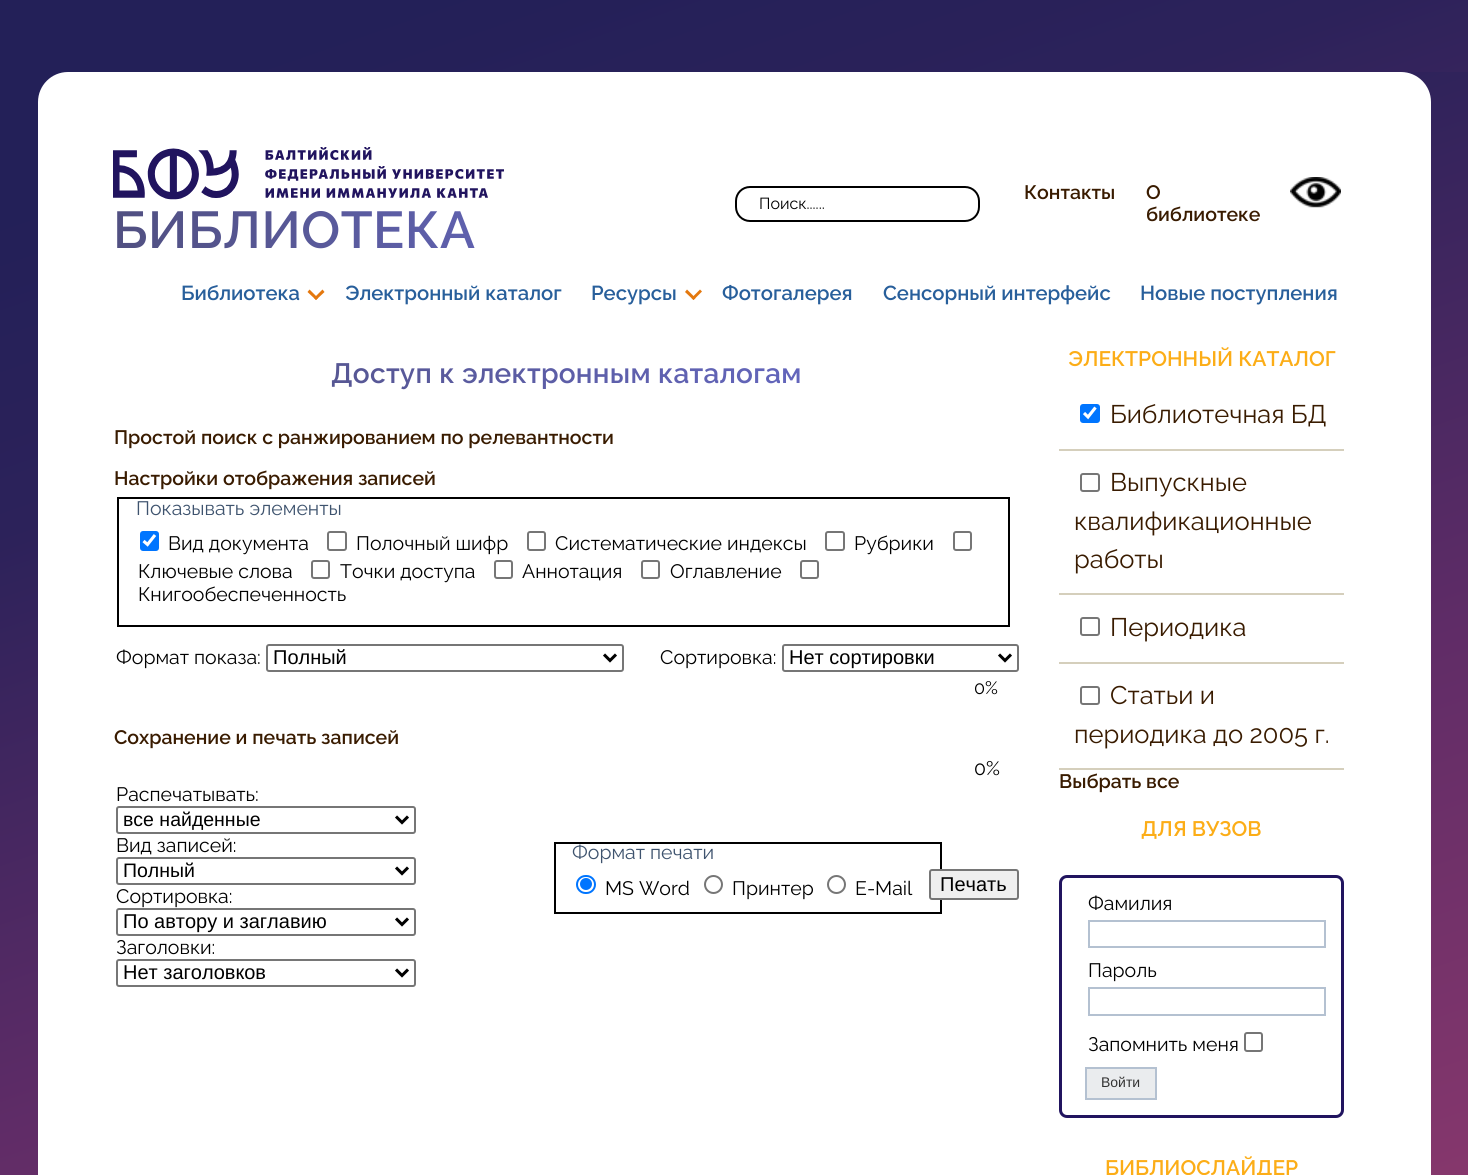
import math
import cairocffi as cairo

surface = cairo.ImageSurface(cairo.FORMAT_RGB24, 1468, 1175)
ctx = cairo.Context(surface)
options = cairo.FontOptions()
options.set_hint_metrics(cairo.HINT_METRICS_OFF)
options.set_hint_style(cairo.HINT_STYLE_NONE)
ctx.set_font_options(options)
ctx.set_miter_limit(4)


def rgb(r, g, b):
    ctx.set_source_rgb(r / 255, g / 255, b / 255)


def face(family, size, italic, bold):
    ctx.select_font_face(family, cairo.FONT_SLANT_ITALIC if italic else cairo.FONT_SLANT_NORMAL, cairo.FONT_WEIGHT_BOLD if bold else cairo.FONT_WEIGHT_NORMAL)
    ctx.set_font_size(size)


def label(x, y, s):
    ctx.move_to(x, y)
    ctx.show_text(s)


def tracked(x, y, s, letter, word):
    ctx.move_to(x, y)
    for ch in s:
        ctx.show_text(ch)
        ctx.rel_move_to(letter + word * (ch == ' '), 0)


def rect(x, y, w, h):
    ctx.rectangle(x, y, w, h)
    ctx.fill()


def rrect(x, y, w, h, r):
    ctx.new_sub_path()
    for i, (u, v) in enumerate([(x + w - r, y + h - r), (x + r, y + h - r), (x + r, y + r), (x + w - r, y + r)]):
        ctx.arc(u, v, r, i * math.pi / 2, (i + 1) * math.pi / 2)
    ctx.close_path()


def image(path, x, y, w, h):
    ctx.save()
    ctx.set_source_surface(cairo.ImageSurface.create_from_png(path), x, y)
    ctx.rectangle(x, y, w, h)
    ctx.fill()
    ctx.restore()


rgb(255, 255, 255)
ctx.paint()
gradient = cairo.LinearGradient(161, -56, 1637, 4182)
gradient.add_color_stop_rgba(0.03, 0.137, 0.125, 0.345, 1)
gradient.add_color_stop_rgba(0.1, 0.173, 0.133, 0.353, 1)
gradient.add_color_stop_rgba(0.23, 0.376, 0.173, 0.404, 1)
gradient.add_color_stop_rgba(0.34, 0.514, 0.212, 0.424, 1)
gradient.add_color_stop_rgba(0.44, 0.651, 0.267, 0.427, 1)
gradient.add_color_stop_rgba(0.53, 0.773, 0.349, 0.424, 1)
gradient.add_color_stop_rgba(0.61, 0.871, 0.443, 0.416, 1)
gradient.add_color_stop_rgba(0.67, 0.937, 0.541, 0.408, 1)
gradient.add_color_stop_rgba(0.77, 0.976, 0.627, 0.408, 1)
gradient.add_color_stop_rgba(0.84, 0.984, 0.678, 0.388, 1)
gradient.add_color_stop_rgba(1, 0.984, 0.627, 0.271, 1)
ctx.set_source(gradient)
rect(0, 0, 1468, 72)
gradient = cairo.LinearGradient(175, 11, 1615, 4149)
gradient.add_color_stop_rgba(0.03, 0.137, 0.125, 0.345, 1)
gradient.add_color_stop_rgba(0.1, 0.173, 0.133, 0.353, 1)
gradient.add_color_stop_rgba(0.23, 0.376, 0.173, 0.404, 1)
gradient.add_color_stop_rgba(0.34, 0.514, 0.212, 0.424, 1)
gradient.add_color_stop_rgba(0.44, 0.651, 0.267, 0.427, 1)
gradient.add_color_stop_rgba(0.53, 0.773, 0.349, 0.424, 1)
gradient.add_color_stop_rgba(0.61, 0.871, 0.443, 0.416, 1)
gradient.add_color_stop_rgba(0.67, 0.937, 0.541, 0.408, 1)
gradient.add_color_stop_rgba(0.77, 0.976, 0.627, 0.408, 1)
gradient.add_color_stop_rgba(0.84, 0.984, 0.678, 0.388, 1)
gradient.add_color_stop_rgba(1, 0.984, 0.627, 0.271, 1)
ctx.set_source(gradient)
rect(0, 72, 1468, 1103)
rgb(255, 255, 255)
rrect(38, 72, 1393, 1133, 30)
ctx.fill()
rrect(736, 187, 243, 34, 14)
rgb(0, 0, 0)
ctx.stroke()
face('Raleway', 16, 0, 0)
label(759, 209, 'Поиск......')
face('Raleway SemiBold', 19.5, 0, 0)
rgb(57, 27, 0)
label(1024, 199, 'Контакты')
label(1146, 199, 'О')
label(1146, 221, 'библиотеке')
image('image0.png', 1290, 177, 51, 31)
image('image1.png', 113, 147, 391, 53)
face('Raleway SemiBold', 51.75, 0, 0)
gradient = cairo.LinearGradient(112, 203, 735, 203)
gradient.add_color_stop_rgba(0.02, 0.318, 0.314, 0.51, 1)
gradient.add_color_stop_rgba(0.88, 0.4, 0.412, 0.773, 1)
ctx.set_source(gradient)
tracked(113, 248, 'БИБЛИОТЕКА', 0.5, 0)
face('Raleway SemiBold', 20.25, 0, 0)
rgb(40, 95, 155)
label(181, 300, 'Библиотека')
rgb(228, 120, 14)
ctx.new_path()
ctx.move_to(324.5, 292)
ctx.line_to(316, 300)
ctx.line_to(314, 298)
ctx.line_to(322.5, 289.5)
ctx.close_path()
ctx.fill()
ctx.new_path()
ctx.move_to(318, 298)
ctx.line_to(316, 300)
ctx.line_to(307.5, 292)
ctx.line_to(309.5, 289.5)
ctx.close_path()
ctx.fill()
rgb(40, 95, 155)
label(345, 300, 'Электронный каталог')
label(591, 300, 'Ресурсы')
rgb(228, 120, 14)
ctx.new_path()
ctx.move_to(702, 291.5)
ctx.line_to(693.5, 300)
ctx.line_to(691.5, 298)
ctx.line_to(700, 289.5)
ctx.close_path()
ctx.fill()
ctx.new_path()
ctx.move_to(695.5, 298)
ctx.line_to(693.5, 300)
ctx.line_to(685, 292)
ctx.line_to(687, 289.5)
ctx.close_path()
ctx.fill()
rgb(40, 95, 155)
label(722, 300, 'Фотогалерея')
label(883, 300, 'Сенсорный интерфейс')
label(1140, 300, 'Новые поступления')
face('Raleway SemiBold', 28, 0, 0)
gradient = cairo.LinearGradient(112, 372, 1022, 372)
gradient.add_color_stop_rgba(0.02, 0.318, 0.314, 0.51, 1)
gradient.add_color_stop_rgba(0.88, 0.4, 0.412, 0.773, 1)
ctx.set_source(gradient)
tracked(331, 383, 'Доступ к электронным каталогам', 0.25, 0)
face('Raleway SemiBold', 19.5, 0, 0)
rgb(57, 27, 0)
label(114, 444, 'Простой поиск c ранжированием по релевантности')
label(114, 485, 'Настройки отображения записей')
ctx.rectangle(118, 498, 891, 128)
rgb(0, 0, 0)
ctx.stroke()
face('Raleway', 19.5, 0, 0)
rgb(62, 83, 110)
label(136, 515, 'Показывать элементы')
rgb(0, 117, 255)
rrect(140, 531, 19, 20, 3)
ctx.fill()
ctx.new_path()
ctx.move_to(143.5, 541)
ctx.line_to(147.5, 544.5)
ctx.line_to(155, 535)
rgb(255, 255, 255)
ctx.set_line_width(3.1)
ctx.stroke()
rgb(0, 0, 0)
label(168, 550, 'Вид документа')
rrect(328, 532, 18, 18, 2)
rgb(118, 118, 118)
ctx.set_line_width(2)
ctx.stroke()
rgb(0, 0, 0)
label(356, 550, 'Полочный шифр')
rrect(528, 532, 17, 18, 2)
rgb(118, 118, 118)
ctx.stroke()
rgb(0, 0, 0)
label(555, 550, 'Систематические индексы')
rrect(826, 532, 18, 18, 2)
rgb(118, 118, 118)
ctx.stroke()
rgb(0, 0, 0)
label(854, 550, 'Рубрики')
rrect(954, 532, 17, 18, 2)
rgb(118, 118, 118)
ctx.stroke()
rgb(0, 0, 0)
label(138, 578, 'Ключевые слова')
rrect(312, 561, 17, 17, 2)
rgb(118, 118, 118)
ctx.stroke()
rgb(0, 0, 0)
label(340, 578, 'Точки доступа')
rrect(495, 561, 17, 17, 2)
rgb(118, 118, 118)
ctx.stroke()
rgb(0, 0, 0)
label(522, 578, 'Аннотация')
rrect(642, 561, 17, 17, 2)
rgb(118, 118, 118)
ctx.stroke()
rgb(0, 0, 0)
label(670, 578, 'Оглавление')
rrect(801, 561, 17, 17, 2)
rgb(118, 118, 118)
ctx.stroke()
rgb(0, 0, 0)
label(138, 601, 'Книгообеспеченность')
label(116, 664, 'Формат показа:')
rrect(267, 645, 356, 26, 2)
rgb(118, 118, 118)
ctx.stroke()
ctx.new_path()
ctx.move_to(604, 654.5)
ctx.line_to(610, 660.5)
ctx.line_to(616, 654.5)
rgb(0, 0, 0)
ctx.set_line_width(3)
ctx.stroke()
face('Liberation Sans', 20, 0, 0)
label(273, 664, 'Полный')
face('Raleway', 19.5, 0, 0)
label(660, 664, 'Сортировка:')
rrect(783, 645, 235, 26, 2)
rgb(118, 118, 118)
ctx.set_line_width(2)
ctx.stroke()
ctx.new_path()
ctx.move_to(999, 654.5)
ctx.line_to(1005, 660.5)
ctx.line_to(1011, 654.5)
rgb(0, 0, 0)
ctx.set_line_width(3)
ctx.stroke()
face('Liberation Sans', 20, 0, 0)
label(789, 664, 'Нет сортировки')
face('Raleway', 18, 0, 0)
label(974, 694, '0%')
face('Raleway SemiBold', 19.5, 0, 0)
rgb(57, 27, 0)
label(114, 744, 'Сохранение и печать записей')
face('Raleway', 19.5, 0, 0)
rgb(0, 0, 0)
label(974, 775, '0%')
label(116, 801, 'Распечатывать:')
rrect(117, 807, 298, 26, 2)
rgb(118, 118, 118)
ctx.set_line_width(2)
ctx.stroke()
ctx.new_path()
ctx.move_to(396, 816.5)
ctx.line_to(402, 822.5)
ctx.line_to(408, 816.5)
rgb(0, 0, 0)
ctx.set_line_width(3)
ctx.stroke()
face('Liberation Sans', 19.5, 0, 0)
label(123, 826, 'все найденные')
face('Raleway', 19.5, 0, 0)
label(116, 852, 'Вид записей:')
rrect(117, 858, 298, 26, 2)
rgb(118, 118, 118)
ctx.set_line_width(2)
ctx.stroke()
ctx.new_path()
ctx.move_to(396, 867.5)
ctx.line_to(402, 873.5)
ctx.line_to(408, 867.5)
rgb(0, 0, 0)
ctx.set_line_width(3)
ctx.stroke()
face('Liberation Sans', 19.5, 0, 0)
label(123, 877, 'Полный')
face('Raleway', 19.5, 0, 0)
label(116, 903, 'Сортировка:')
rrect(117, 909, 298, 26, 2)
rgb(118, 118, 118)
ctx.set_line_width(2)
ctx.stroke()
ctx.new_path()
ctx.move_to(396, 918.5)
ctx.line_to(402, 924.5)
ctx.line_to(408, 918.5)
rgb(0, 0, 0)
ctx.set_line_width(3)
ctx.stroke()
face('Liberation Sans', 20, 0, 0)
label(123, 928, 'По автору и заглавию')
face('Raleway', 19.5, 0, 0)
label(116, 954, 'Заголовки:')
rrect(117, 960, 298, 26, 2)
rgb(118, 118, 118)
ctx.set_line_width(2)
ctx.stroke()
ctx.new_path()
ctx.move_to(396, 969.5)
ctx.line_to(402, 975.5)
ctx.line_to(408, 969.5)
rgb(0, 0, 0)
ctx.set_line_width(3)
ctx.stroke()
face('Liberation Sans', 20, 0, 0)
label(123, 979, 'Нет заголовков')
ctx.rectangle(555, 843, 386, 70)
ctx.set_line_width(2)
ctx.stroke()
face('Raleway', 19.5, 0, 0)
rgb(62, 83, 110)
label(572, 859, 'Формат печати')
rrect(577, 876, 18, 17, 8.5)
rgb(0, 117, 255)
ctx.stroke()
ctx.arc(586, 884, 6, 0, 2 * math.pi)
ctx.fill()
rgb(0, 0, 0)
label(605, 895, 'MS Word')
ctx.new_path()
ctx.arc(713.5, 884.5, 8.5, 0, 2 * math.pi)
rgb(118, 118, 118)
ctx.stroke()
rgb(0, 0, 0)
label(732, 895, 'Принтер')
ctx.new_path()
ctx.arc(836.5, 884.5, 8.5, 0, 2 * math.pi)
rgb(118, 118, 118)
ctx.stroke()
rgb(0, 0, 0)
label(855, 895, 'E-Mail')
rgb(239, 239, 239)
rrect(930, 870, 88, 29, 2)
ctx.fill_preserve()
rgb(118, 118, 118)
ctx.stroke()
face('Liberation Sans', 20, 0, 0)
rgb(0, 0, 0)
label(940, 891, 'Печать')
face('Raleway SemiBold', 21, 0, 0)
rgb(252, 173, 23)
label(1068, 366, 'ЭЛЕКТРОННЫЙ КАТАЛОГ')
rgb(213, 207, 188)
rect(1059, 449, 285, 2)
rgb(0, 117, 255)
rrect(1080, 404, 20, 19, 3)
ctx.fill()
ctx.new_path()
ctx.move_to(1084, 413)
ctx.line_to(1088, 417)
ctx.line_to(1095.5, 407.5)
rgb(255, 255, 255)
ctx.set_line_width(3.1)
ctx.stroke()
face('Raleway', 25.5, 0, 0)
rgb(57, 27, 0)
label(1110, 423, 'Библиотечная БД')
rgb(213, 207, 188)
rect(1059, 593, 285, 2)
rrect(1081, 474, 18, 17, 2)
rgb(118, 118, 118)
ctx.set_line_width(2)
ctx.stroke()
rgb(57, 27, 0)
label(1110, 491, 'Выпускные')
label(1074, 530, 'квалификационные')
label(1074, 568, 'работы')
rgb(213, 207, 188)
rect(1059, 662, 285, 2)
rrect(1081, 618, 18, 17, 2)
rgb(118, 118, 118)
ctx.stroke()
rgb(57, 27, 0)
label(1110, 636, 'Периодика')
rgb(213, 207, 188)
rect(1059, 768, 285, 2)
rrect(1081, 687, 18, 17, 2)
rgb(118, 118, 118)
ctx.stroke()
rgb(57, 27, 0)
label(1110, 704, 'Статьи и')
label(1074, 743, 'периодика до 2005 г.')
face('Raleway SemiBold', 19.5, 0, 0)
label(1059, 788, 'Выбрать все')
face('Raleway SemiBold', 21, 0, 0)
rgb(252, 173, 23)
label(1141, 836, 'ДЛЯ ВУЗОВ')
rrect(1060.5, 876.5, 282, 240, 6.5)
rgb(33, 20, 95)
ctx.set_line_width(3)
ctx.stroke()
face('Raleway', 19.5, 0, 0)
rgb(0, 0, 0)
label(1088, 910, 'Фамилия')
ctx.rectangle(1089, 921, 236, 26)
rgb(180, 193, 209)
ctx.set_line_width(2)
ctx.stroke()
rgb(0, 0, 0)
label(1088, 977, 'Пароль')
ctx.rectangle(1089, 988, 236, 27)
rgb(180, 193, 209)
ctx.stroke()
rgb(0, 0, 0)
label(1088, 1051, 'Запомнить меня')
rrect(1245, 1033, 17, 18, 2)
rgb(118, 118, 118)
ctx.stroke()
rgb(234, 236, 238)
ctx.rectangle(1086, 1068, 70, 31)
ctx.fill_preserve()
rgb(180, 193, 209)
ctx.stroke()
face('Liberation Sans', 14, 0, 0)
rgb(51, 51, 51)
label(1101, 1087, 'Войти')
face('Raleway SemiBold', 21, 0, 0)
rgb(252, 173, 23)
label(1105, 1175, 'БИБЛИОСЛАЙДЕР')
surface.write_to_png('render.png')
